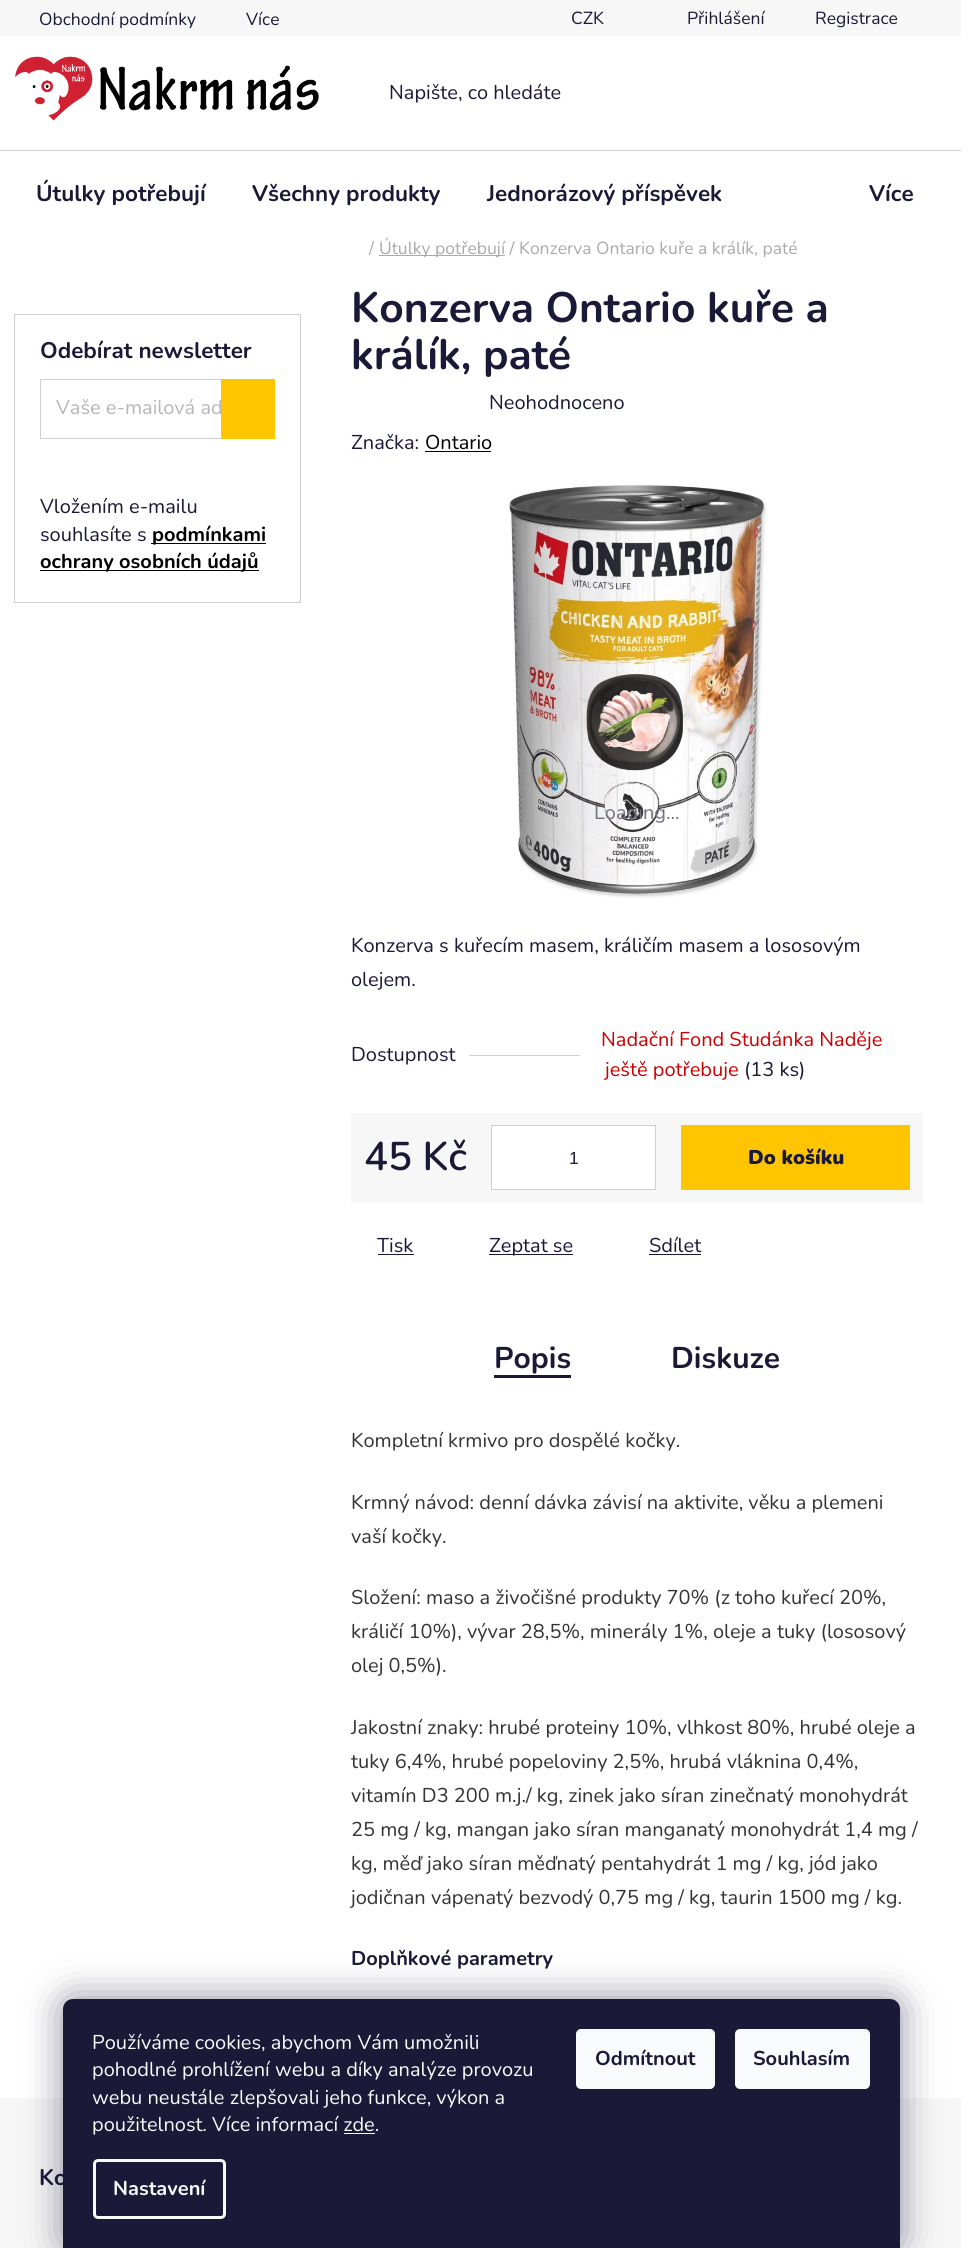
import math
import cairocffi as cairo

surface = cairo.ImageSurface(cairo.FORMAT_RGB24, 980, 2248)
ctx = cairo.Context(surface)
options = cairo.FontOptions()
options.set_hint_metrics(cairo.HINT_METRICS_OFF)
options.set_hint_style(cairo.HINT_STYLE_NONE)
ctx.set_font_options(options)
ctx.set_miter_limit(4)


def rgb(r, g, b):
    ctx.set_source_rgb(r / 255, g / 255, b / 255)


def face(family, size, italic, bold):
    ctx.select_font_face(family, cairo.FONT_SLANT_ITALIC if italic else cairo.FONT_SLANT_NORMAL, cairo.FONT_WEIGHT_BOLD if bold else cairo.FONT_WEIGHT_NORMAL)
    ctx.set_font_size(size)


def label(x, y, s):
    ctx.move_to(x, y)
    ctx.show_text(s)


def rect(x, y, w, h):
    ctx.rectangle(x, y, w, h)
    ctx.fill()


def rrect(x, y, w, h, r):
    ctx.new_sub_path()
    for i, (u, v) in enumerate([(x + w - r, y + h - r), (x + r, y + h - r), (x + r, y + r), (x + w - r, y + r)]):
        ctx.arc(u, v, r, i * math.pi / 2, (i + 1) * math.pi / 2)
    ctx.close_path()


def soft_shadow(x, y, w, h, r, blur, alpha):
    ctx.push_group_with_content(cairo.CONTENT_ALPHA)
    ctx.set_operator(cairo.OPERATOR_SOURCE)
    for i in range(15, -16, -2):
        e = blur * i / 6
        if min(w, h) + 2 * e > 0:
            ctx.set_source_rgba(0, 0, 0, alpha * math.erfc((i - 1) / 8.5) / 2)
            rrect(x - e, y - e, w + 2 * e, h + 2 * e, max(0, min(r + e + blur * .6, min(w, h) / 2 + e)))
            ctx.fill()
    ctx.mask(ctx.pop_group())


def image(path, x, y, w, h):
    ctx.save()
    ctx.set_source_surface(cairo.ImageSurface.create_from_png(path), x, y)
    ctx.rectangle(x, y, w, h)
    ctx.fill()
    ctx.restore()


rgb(255, 255, 255)
ctx.paint()
rgb(247, 247, 247)
rect(0, 0, 961, 36)
face('Nunito', 17.5, 0, 0)
rgb(26, 25, 55)
label(39, 25, 'Obchodní podmínky')
label(246, 25, 'Více')
label(571, 24, 'CZK')
label(687, 24, 'Přihlášení')
label(815, 24, 'Registrace')
image('image0.png', 15, 56, 304, 65)
face('Nunito', 20, 0, 0)
label(389, 99, 'Napište, co hledáte')
rgb(207, 207, 207)
rect(0, 150, 961, 1)
face('Nunito', 22.5, 0, 1)
rgb(26, 25, 55)
label(36, 201, 'Útulky potřebují')
label(252, 201, 'Všechny produkty')
label(487, 201, 'Jednorázový příspěvek')
label(869, 201, 'Více')
face('Nunito', 17.5, 0, 0)
rgb(170, 170, 170)
label(369, 254, '/')
rect(379, 255, 126, 1)
label(379, 254, 'Útulky potřebují / Konzerva Ontario kuře a králík, paté')
ctx.rectangle(14.5, 314.5, 286, 288)
rgb(207, 207, 207)
ctx.set_line_width(1)
ctx.stroke()
face('Nunito', 22.5, 0, 1)
rgb(26, 25, 55)
label(40, 358, 'Odebírat newsletter')
ctx.rectangle(40.5, 379.5, 234, 59)
rgb(207, 207, 207)
ctx.stroke()
face('Nunito', 20, 0, 0)
rgb(182, 182, 182)
label(56, 414, 'Vaše e-mailová ad')
rgb(255, 197, 0)
rect(221, 379, 54, 60)
rgb(26, 25, 55)
label(40, 513, 'Vložením e-mailu')
label(40, 541, 'souhlasíte s')
rgb(0, 0, 0)
rect(151, 543, 115, 1)
face('Nunito', 20, 0, 1)
label(152, 541, 'podmínkami')
rect(40, 570, 219, 1)
label(40, 568, 'ochrany osobních údajů')
face('Nunito', 42.5, 0, 1)
rgb(26, 25, 55)
label(351, 322, 'Konzerva Ontario kuře a')
label(351, 369, 'králík, paté')
face('Nunito', 20, 0, 0)
label(489, 409, 'Neohodnoceno')
label(351, 449, 'Značka:')
rgb(0, 0, 0)
label(425, 449, 'Ontario')
rect(425, 451, 66, 1)
image('image1.png', 508, 484, 259, 414)
rgb(114, 113, 128)
label(594, 819, 'Loading...')
rgb(26, 25, 55)
label(351, 952, 'Konzerva s kuřecím masem, králičím masem a lososovým')
label(351, 986, 'olejem.')
label(351, 1061, 'Dostupnost')
rgb(207, 207, 207)
rect(469, 1055, 111, 1)
rgb(203, 0, 0)
label(601, 1046, 'Nadační Fond Studánka Naděje')
label(605, 1076, 'ještě potřebuje')
rgb(26, 25, 55)
label(744, 1076, '(13 ks)')
rgb(247, 247, 247)
rect(351, 1113, 572, 90)
face('Nunito SemiBold', 40, 0, 0)
rgb(26, 25, 55)
label(364, 1170, '45 Kč')
rgb(255, 255, 255)
ctx.rectangle(491.5, 1125.5, 164, 64)
ctx.fill_preserve()
rgb(207, 207, 207)
ctx.stroke()
face('Liberation Sans', 17.5, 0, 0)
rgb(26, 25, 55)
label(569, 1164, '1')
rgb(255, 197, 0)
rect(681, 1125, 229, 65)
face('Nunito Black', 20, 0, 0)
rgb(26, 25, 55)
label(748, 1164, 'Do košíku')
face('Nunito', 20, 0, 0)
label(377, 1252, 'Tisk')
rect(378, 1254, 36, 1)
rect(489, 1254, 84, 1)
label(489, 1252, 'Zeptat se')
label(649, 1252, 'Sdílet')
rect(649, 1254, 52, 1)
face('Nunito', 30, 0, 1)
label(494, 1368, 'Popis')
rect(494, 1375, 77, 3)
label(671, 1368, 'Diskuze')
face('Nunito', 20, 0, 0)
rgb(51, 51, 51)
label(351, 1447, 'Kompletní krmivo pro dospělé kočky.')
label(351, 1509, 'Krmný návod: denní dávka závisí na aktivite, věku a plemeni')
label(351, 1543, 'vaší kočky.')
label(351, 1604, 'Složení: maso a živočišné produkty 70% (z toho kuřecí 20%,')
label(351, 1638, 'králičí 10%), vývar 28,5%, minerály 1%, oleje a tuky (lososový')
label(351, 1672, 'olej 0,5%).')
label(351, 1734, 'Jakostní znaky: hrubé proteiny 10%, vlhkost 80%, hrubé oleje a')
label(351, 1768, 'tuky 6,4%, hrubé popeloviny 2,5%, hrubá vláknina 0,4%,')
label(351, 1802, 'vitamín D3 200 m.j./ kg, zinek jako síran zinečnatý monohydrát')
label(351, 1836, '25 mg / kg, mangan jako síran manganatý monohydrát 1,4 mg /')
label(351, 1870, 'kg, měď jako síran měďnatý pentahydrát 1 mg / kg, jód jako')
label(351, 1904, 'jodičnan vápenatý bezvodý 0,75 mg / kg, taurin 1500 mg / kg.')
face('Nunito', 20, 0, 1)
rgb(26, 25, 55)
label(351, 1965, 'Doplňkové parametry')
rgb(247, 247, 247)
rect(0, 2098, 961, 150)
face('Nunito', 22.5, 0, 1)
rgb(26, 25, 55)
label(39, 2185, 'Ko')
rgb(27, 25, 57)
soft_shadow(63, 1999, 837, 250, 10, 19, 0.5)
rgb(26, 25, 55)
ctx.new_path()
ctx.move_to(73, 1999)
ctx.line_to(890, 1999)
ctx.curve_to(895.5, 1999, 900, 2003.5, 900, 2009)
ctx.line_to(900, 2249)
ctx.line_to(63, 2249)
ctx.line_to(63, 2009)
ctx.curve_to(63, 2003.5, 67.5, 1999, 73, 1999)
ctx.close_path()
ctx.fill()
face('Nunito', 20, 0, 0)
rgb(248, 250, 251)
label(92, 2049, 'Používáme cookies, abychom Vám umožnili')
label(92, 2076, 'pohodlné prohlížení webu a díky analýze provozu')
label(92, 2104, 'webu neustále zlepšovali jeho funkce, výkon a')
label(92, 2131, 'použitelnost')
face('Nunito', 20, 1, 0)
label(202, 2131, '.')
face('Nunito', 20, 0, 0)
label(212, 2131, 'Více informací zde.')
rect(344, 2133, 31, 1)
rrect(94.5, 2160.5, 130, 57, 3.5)
ctx.set_line_width(3)
ctx.stroke()
face('Nunito', 20, 0, 1)
label(113, 2195, 'Nastavení')
rrect(576, 2029, 139, 60, 5)
ctx.fill()
rgb(26, 25, 55)
label(595, 2065, 'Odmítnout')
rgb(248, 250, 251)
rrect(735, 2029, 135, 60, 5)
ctx.fill()
rgb(26, 25, 55)
label(753, 2065, 'Souhlasím')
surface.write_to_png('render.png')
